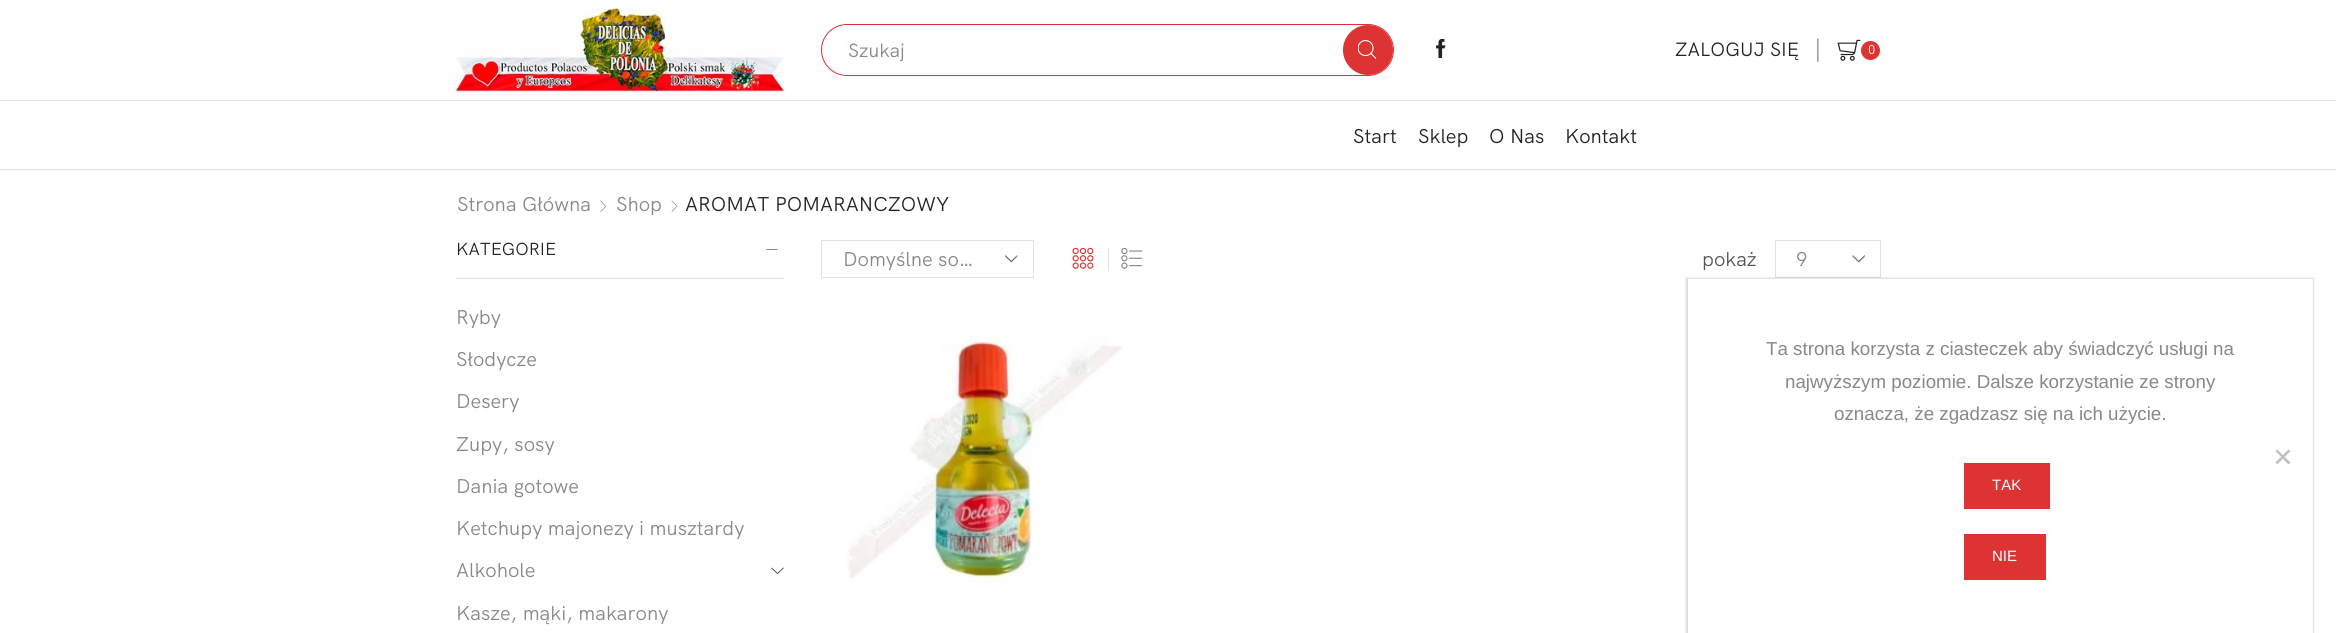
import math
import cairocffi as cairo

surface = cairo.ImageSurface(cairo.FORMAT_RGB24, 2336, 633)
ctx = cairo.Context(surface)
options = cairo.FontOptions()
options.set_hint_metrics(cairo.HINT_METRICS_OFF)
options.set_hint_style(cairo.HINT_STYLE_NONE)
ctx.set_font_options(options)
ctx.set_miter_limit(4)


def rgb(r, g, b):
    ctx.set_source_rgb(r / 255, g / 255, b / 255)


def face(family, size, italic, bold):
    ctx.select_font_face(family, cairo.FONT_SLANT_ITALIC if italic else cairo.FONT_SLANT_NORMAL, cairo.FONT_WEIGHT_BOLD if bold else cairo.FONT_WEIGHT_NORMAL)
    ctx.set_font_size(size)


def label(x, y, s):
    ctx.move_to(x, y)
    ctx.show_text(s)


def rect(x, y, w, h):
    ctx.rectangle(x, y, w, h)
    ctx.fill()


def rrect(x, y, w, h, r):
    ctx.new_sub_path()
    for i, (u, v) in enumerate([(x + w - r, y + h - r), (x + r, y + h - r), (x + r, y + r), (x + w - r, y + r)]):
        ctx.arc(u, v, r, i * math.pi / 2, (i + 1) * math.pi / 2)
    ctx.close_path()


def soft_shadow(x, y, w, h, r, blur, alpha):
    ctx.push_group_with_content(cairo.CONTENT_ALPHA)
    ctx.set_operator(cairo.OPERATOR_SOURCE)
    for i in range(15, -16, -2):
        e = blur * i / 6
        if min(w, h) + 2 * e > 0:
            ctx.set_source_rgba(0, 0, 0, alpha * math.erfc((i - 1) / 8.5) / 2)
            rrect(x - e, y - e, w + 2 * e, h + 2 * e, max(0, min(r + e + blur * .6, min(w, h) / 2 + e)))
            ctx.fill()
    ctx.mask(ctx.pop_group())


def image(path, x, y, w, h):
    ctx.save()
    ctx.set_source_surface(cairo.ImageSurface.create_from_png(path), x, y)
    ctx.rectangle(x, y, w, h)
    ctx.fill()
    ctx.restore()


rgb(255, 255, 255)
ctx.paint()
rgb(225, 225, 225)
rect(0, 100, 2336, 1)
image('image0.png', 456, 8, 328, 84)
rrect(821.5, 24.5, 572, 51, 25.5)
rgb(221, 51, 51)
ctx.set_line_width(1)
ctx.stroke()
ctx.save()
rrect(823, 25, 570, 50, 25)
ctx.clip()
rgb(255, 255, 255)
rect(835, 25, 508, 50)
ctx.restore()
face('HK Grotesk', 19.25, 0, 0)
rgb(136, 136, 136)
label(848, 57, 'Szukaj')
rgb(221, 51, 51)
ctx.new_path()
ctx.arc(1368, 50, 25, 0, 2 * math.pi)
ctx.fill()
image('image1.png', 1358, 40, 18, 20)
image('image2.png', 1436, 39, 10, 19)
rgb(34, 34, 34)
label(1675, 56, 'ZALOGUJ SIĘ')
face('Liberation Serif', 19.25, 0, 0)
rgb(145, 145, 145)
label(1811, 56, '│')
image('image3.png', 1837, 39, 24, 22)
rgb(221, 51, 51)
ctx.arc(1870.5, 50.5, 9.5, 0, 2 * math.pi)
ctx.fill()
face('HK Grotesk', 13, 0, 0)
rgb(255, 255, 255)
label(1868, 54, '0')
rgb(225, 225, 225)
rect(0, 169, 2336, 1)
face('HK Grotesk', 20, 0, 0)
rgb(34, 34, 34)
label(1353, 143, 'Start')
label(1418, 143, 'Sklep')
label(1489, 143, 'O Nas')
label(1565, 143, 'Kontakt')
rgb(136, 136, 136)
label(457, 211, 'Strona Główna')
image('image4.png', 600, 200, 6, 12)
label(616, 211, 'Shop')
image('image5.png', 671, 200, 7, 12)
rgb(34, 34, 34)
label(685, 211, 'AROMAT POMARANCZOWY')
rgb(225, 225, 225)
rect(456, 278, 328, 1)
face('HK Grotesk', 17.5, 0, 0)
rgb(34, 34, 34)
label(456, 255, 'KATEGORIE')
image('image6.png', 766, 249, 12, 1)
face('HK Grotesk', 20, 0, 0)
rgb(136, 136, 136)
label(456, 324, 'Ryby')
label(456, 366, 'Słodycze')
label(456, 408, 'Desery')
label(456, 451, 'Zupy, sosy')
label(456, 493, 'Dania gotowe')
label(456, 535, 'Ketchupy majonezy i musztardy')
label(456, 577, 'Alkohole')
image('image7.png', 771, 567, 13, 7)
label(456, 620, 'Kasze, mąki, makarony')
image('image8.png', 1005, 255, 13, 8)
ctx.rectangle(821.5, 240.5, 212, 37)
rgb(225, 225, 225)
ctx.stroke()
rgb(136, 136, 136)
label(843, 266, 'Domyślne so…')
image('image9.png', 1072, 247, 22, 22)
rgb(225, 225, 225)
rect(1108, 248, 1, 23)
image('image10.png', 1121, 247, 22, 22)
rgb(85, 85, 85)
label(1702, 266, 'pokaż')
image('image11.png', 1852, 255, 13, 8)
ctx.rectangle(1775.5, 240.5, 105, 37)
rgb(225, 225, 225)
ctx.stroke()
rgb(136, 136, 136)
label(1796, 266, '9')
image('image12.png', 847, 336, 276, 247)
ctx.save()
ctx.set_fill_rule(cairo.FILL_RULE_EVEN_ODD)
ctx.new_path()
ctx.move_to(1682, 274)
ctx.line_to(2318, 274)
ctx.line_to(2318, 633)
ctx.line_to(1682, 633)
ctx.close_path()
ctx.move_to(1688, 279)
ctx.line_to(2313, 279)
ctx.line_to(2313, 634)
ctx.line_to(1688, 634)
ctx.close_path()
ctx.clip()
rgb(0, 0, 0)
soft_shadow(1686, 278, 628, 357, 0, 1, 0.15)
ctx.restore()
ctx.set_source_rgba(1, 1, 1, 0.9)
rect(2312, 279, 1, 354)
face('Liberation Sans', 18.75, 0, 0)
rgb(136, 136, 136)
label(1766, 355, 'Ta strona korzysta z ciasteczek aby świadczyć usługi na')
label(1785, 388, 'najwyższym poziomie. Dalsze korzystanie ze strony')
label(1834, 420, 'oznacza, że zgadzasz się na ich użycie.')
rgb(192, 192, 192)
ctx.new_path()
ctx.move_to(2288.5, 449.5)
ctx.line_to(2290.5, 451)
ctx.line_to(2277, 464.5)
ctx.line_to(2275.5, 462.5)
ctx.close_path()
ctx.fill()
ctx.new_path()
ctx.move_to(2275.5, 451)
ctx.line_to(2277, 449.5)
ctx.line_to(2290.5, 462.5)
ctx.line_to(2288.5, 464.5)
ctx.close_path()
ctx.fill()
rgb(221, 51, 51)
rect(1964, 463, 86, 46)
face('Liberation Sans', 15, 0, 0)
rgb(255, 255, 255)
label(1992, 490, 'TAK')
rgb(221, 51, 51)
rect(1964, 534, 82, 46)
rgb(255, 255, 255)
label(1992, 561, 'NIE')
surface.write_to_png('render.png')
